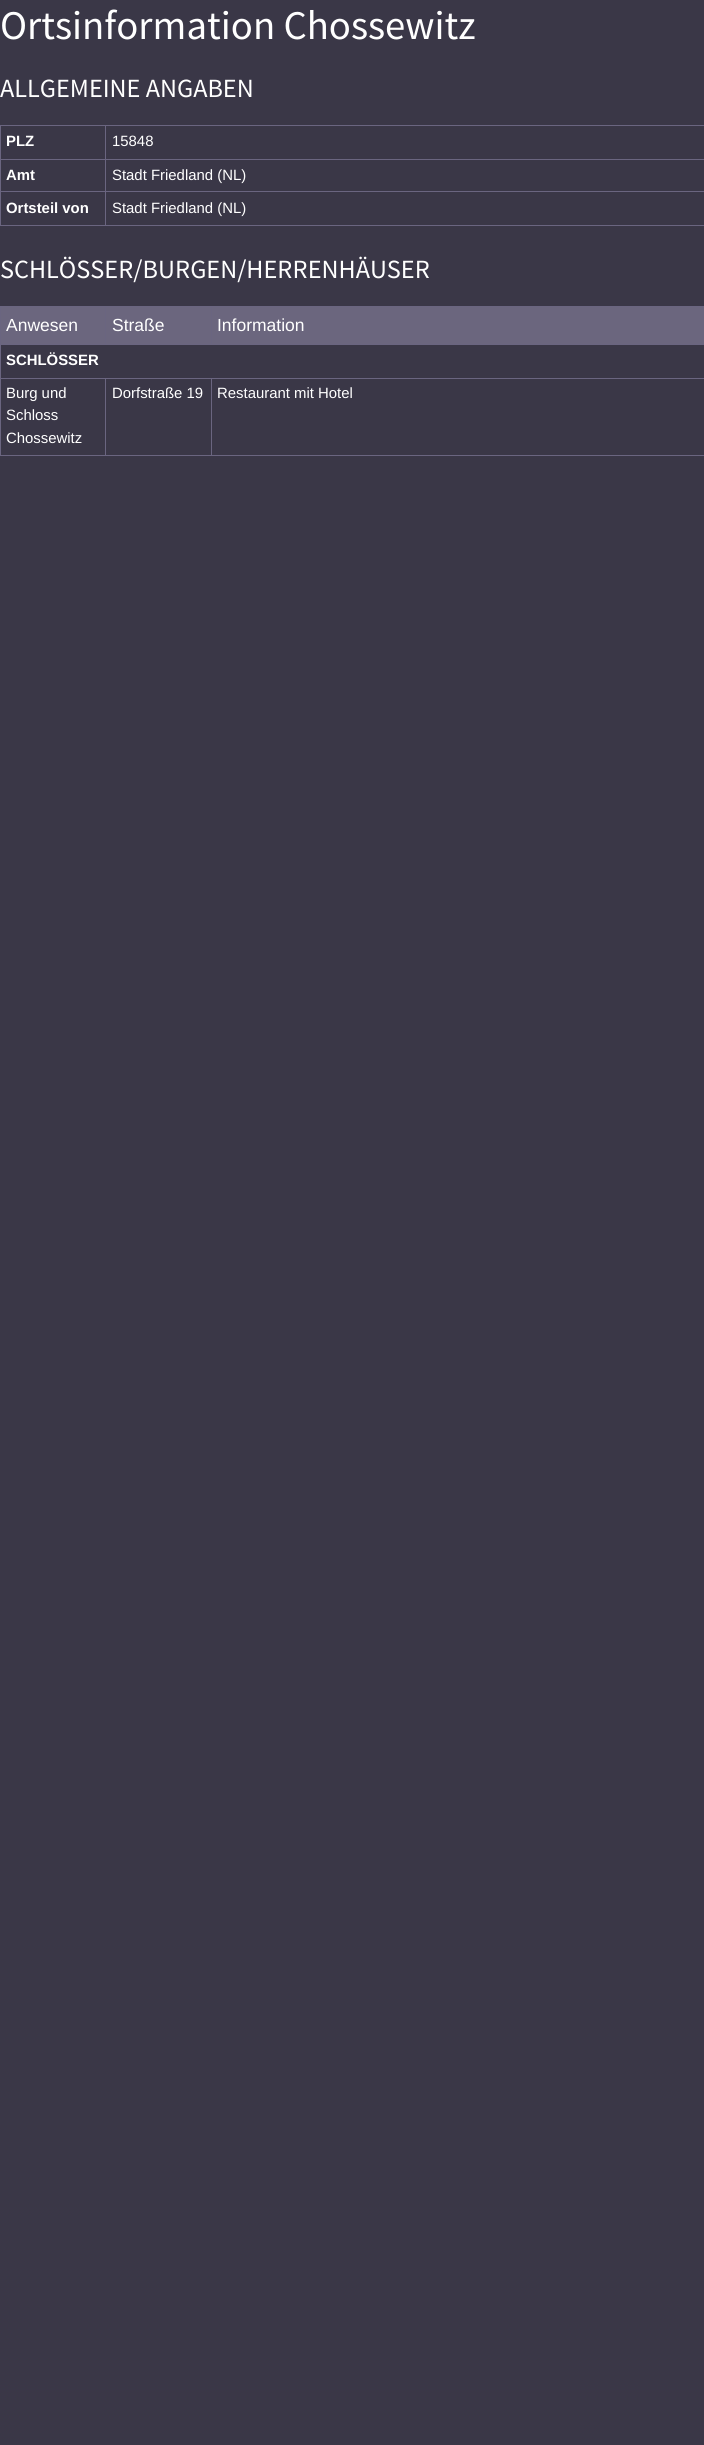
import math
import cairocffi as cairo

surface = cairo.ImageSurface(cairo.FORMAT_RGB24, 704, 2445)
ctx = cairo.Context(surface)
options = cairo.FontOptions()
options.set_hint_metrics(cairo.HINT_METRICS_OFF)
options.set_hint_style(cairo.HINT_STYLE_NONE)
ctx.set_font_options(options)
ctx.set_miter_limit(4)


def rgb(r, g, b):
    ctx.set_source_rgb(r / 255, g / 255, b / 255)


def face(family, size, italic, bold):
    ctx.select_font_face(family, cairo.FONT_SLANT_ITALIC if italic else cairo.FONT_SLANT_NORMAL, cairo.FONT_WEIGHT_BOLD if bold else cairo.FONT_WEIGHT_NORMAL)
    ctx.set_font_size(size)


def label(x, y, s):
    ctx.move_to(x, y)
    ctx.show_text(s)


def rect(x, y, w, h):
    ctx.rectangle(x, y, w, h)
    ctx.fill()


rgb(58, 55, 71)
ctx.paint()
face('Source Sans Pro', 40.75, 0, 0)
rgb(255, 255, 255)
label(0, 39, 'Ortsinformation Chossewitz')
face('Source Sans Pro', 26.25, 0, 0)
label(0, 97, 'ALLGEMEINE ANGABEN')
rgb(106, 101, 128)
rect(0, 125, 704, 1)
rect(0, 225, 704, 1)
rect(0, 125, 1, 101)
face('Liberation Sans', 14.9, 0, 1)
rgb(255, 255, 255)
label(6, 146, 'PLZ')
rgb(106, 101, 128)
rect(105, 159, 599, 1)
rect(105, 191, 599, 1)
rect(105, 191, 1, 35)
rect(0, 191, 106, 1)
rect(105, 159, 1, 34)
rect(0, 159, 106, 1)
rect(105, 125, 1, 35)
face('Liberation Sans', 14.9, 0, 0)
rgb(255, 255, 255)
label(112, 146, '15848')
face('Liberation Sans', 14.9, 0, 1)
label(6, 180, 'Amt')
face('Liberation Sans', 14.9, 0, 0)
label(112, 180, 'Stadt Friedland (NL)')
face('Liberation Sans', 14.9, 0, 1)
label(6, 213, 'Ortsteil von')
face('Liberation Sans', 14.9, 0, 0)
label(112, 213, 'Stadt Friedland (NL)')
face('Source Sans Pro', 26.25, 0, 0)
label(0, 278, 'SCHLÖSSER/BURGEN/HERRENHÄUSER')
rgb(106, 101, 128)
rect(0, 306, 704, 1)
rect(0, 455, 704, 1)
rect(0, 306, 1, 150)
rgb(107, 102, 126)
rect(1, 307, 104, 37)
face('Liberation Sans', 17.5, 0, 0)
rgb(255, 255, 255)
label(6, 331, 'Anwesen')
rgb(107, 102, 126)
rect(106, 307, 105, 37)
rgb(106, 101, 128)
rect(0, 344, 704, 1)
rect(105, 306, 1, 39)
rgb(255, 255, 255)
label(112, 331, 'Straße')
rgb(107, 102, 126)
rect(212, 307, 492, 37)
rgb(106, 101, 128)
rect(211, 306, 1, 39)
rgb(255, 255, 255)
label(217, 331, 'Information')
face('Liberation Sans', 14.9, 0, 1)
label(6, 365, 'SCHLÖSSER')
rgb(106, 101, 128)
rect(211, 378, 493, 1)
rect(211, 378, 1, 78)
rect(105, 378, 108, 1)
rect(105, 378, 1, 78)
rect(0, 378, 106, 1)
face('Liberation Sans', 14.9, 0, 0)
rgb(255, 255, 255)
label(6, 398, 'Burg und')
label(6, 420, 'Schloss')
label(6, 443, 'Chossewitz')
label(112, 398, 'Dorfstraße 19')
label(217, 398, 'Restaurant mit Hotel')
surface.write_to_png('render.png')
